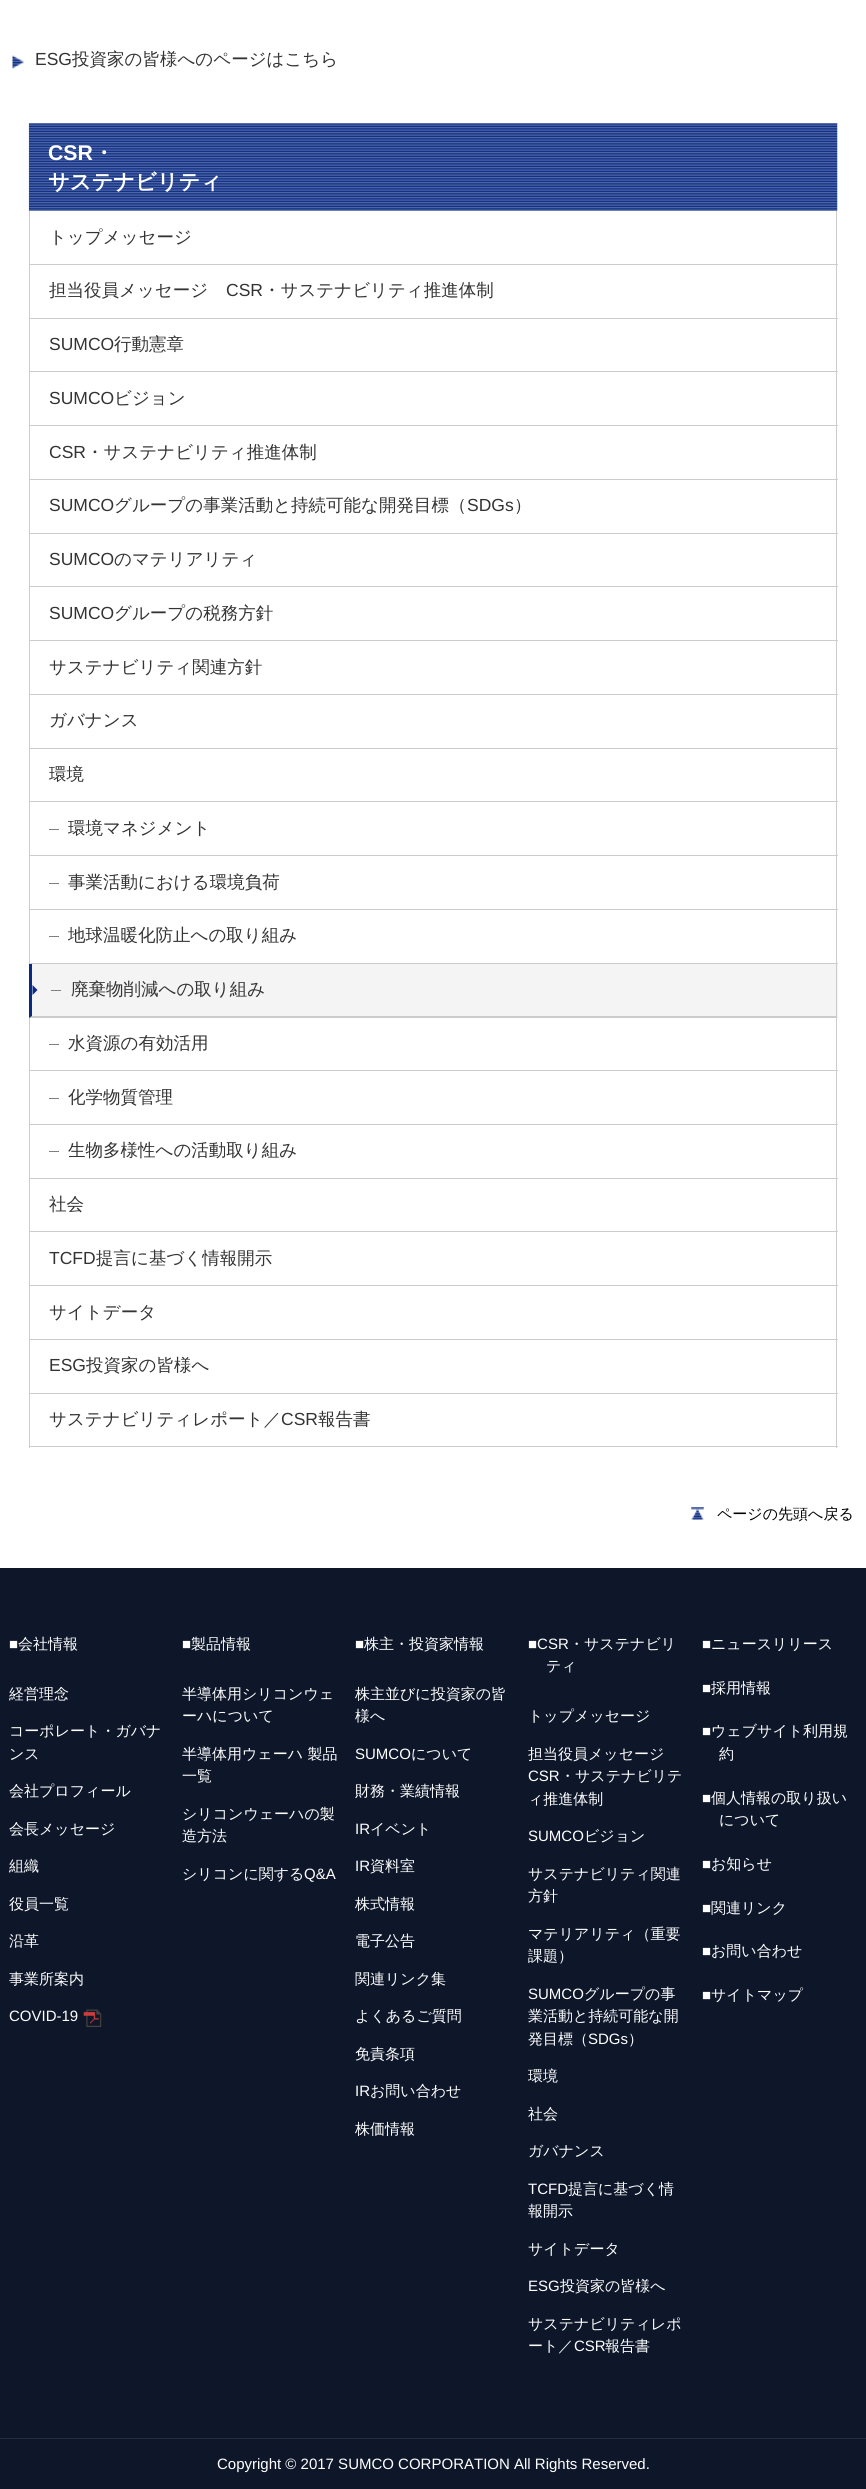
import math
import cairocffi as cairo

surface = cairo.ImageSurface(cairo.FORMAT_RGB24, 866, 2489)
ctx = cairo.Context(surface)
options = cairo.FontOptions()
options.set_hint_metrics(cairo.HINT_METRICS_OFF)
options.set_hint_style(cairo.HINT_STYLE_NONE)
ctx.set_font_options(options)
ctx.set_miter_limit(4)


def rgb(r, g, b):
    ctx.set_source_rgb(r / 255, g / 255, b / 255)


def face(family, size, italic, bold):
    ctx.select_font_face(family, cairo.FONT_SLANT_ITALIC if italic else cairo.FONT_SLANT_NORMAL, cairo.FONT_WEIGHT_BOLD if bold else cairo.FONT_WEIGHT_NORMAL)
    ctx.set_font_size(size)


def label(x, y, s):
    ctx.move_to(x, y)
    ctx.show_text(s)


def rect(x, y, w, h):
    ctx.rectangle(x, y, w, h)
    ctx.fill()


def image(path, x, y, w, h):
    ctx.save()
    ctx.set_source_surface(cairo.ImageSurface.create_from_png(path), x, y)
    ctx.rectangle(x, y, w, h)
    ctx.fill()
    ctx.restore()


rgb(255, 255, 255)
ctx.paint()
image('image0.png', 12, 55, 12, 14)
face('Liberation Sans', 17.5, 0, 0)
rgb(51, 51, 51)
label(35, 65, 'ESG')
face('WenQuanYi Zen Hei Medium', 17.5, 0, 0)
label(72, 65, '投資家の皆様へのページはこちら')
image('image1.png', 28, 123, 810, 88)
face('Liberation Sans', 21.25, 0, 1)
rgb(255, 255, 255)
label(48, 160, 'CSR')
face('WenQuanYi Zen Hei', 21.25, 0, 1)
label(93, 160, '・')
label(48, 189, 'サステナビリティ')
rgb(204, 204, 204)
rect(836, 211, 1, 753)
rect(29, 264, 809, 1)
rect(29, 211, 1, 54)
face('WenQuanYi Zen Hei Medium', 17.5, 0, 0)
rgb(51, 51, 51)
label(49, 243, 'トップメッセージ')
rgb(204, 204, 204)
rect(29, 318, 809, 1)
rect(29, 265, 1, 54)
rgb(51, 51, 51)
label(49, 296, '担当役員メッセージ')
face('Liberation Sans', 17.5, 0, 0)
label(226, 296, 'CSR')
face('WenQuanYi Zen Hei Medium', 17.5, 0, 0)
label(263, 296, '・サステナビリティ推進体制')
rgb(204, 204, 204)
rect(29, 371, 809, 1)
rect(29, 319, 1, 54)
face('Liberation Sans', 17.5, 0, 0)
rgb(51, 51, 51)
label(49, 350, 'SUMCO')
face('WenQuanYi Zen Hei Medium', 17.5, 0, 0)
label(114, 350, '行動憲章')
rgb(204, 204, 204)
rect(29, 425, 809, 1)
rect(29, 373, 1, 53)
face('Liberation Sans', 17.5, 0, 0)
rgb(51, 51, 51)
label(49, 404, 'SUMCO')
face('WenQuanYi Zen Hei Medium', 17.5, 0, 0)
label(114, 404, 'ビジョン')
rgb(204, 204, 204)
rect(29, 479, 809, 1)
rect(29, 426, 1, 54)
face('Liberation Sans', 17.5, 0, 0)
rgb(51, 51, 51)
label(49, 458, 'CSR')
face('WenQuanYi Zen Hei Medium', 17.5, 0, 0)
label(86, 458, '・サステナビリティ推進体制')
rgb(204, 204, 204)
rect(29, 533, 809, 1)
rect(29, 480, 1, 54)
face('Liberation Sans', 17.5, 0, 0)
rgb(51, 51, 51)
label(49, 511, 'SUMCO')
face('WenQuanYi Zen Hei Medium', 17.5, 0, 0)
label(114, 511, 'グループの事業活動と持続可能な開発目標（')
face('Liberation Sans', 17.5, 0, 0)
label(467, 511, 'SDGs')
face('WenQuanYi Zen Hei Medium', 17.5, 0, 0)
label(514, 511, '）')
rgb(204, 204, 204)
rect(29, 586, 809, 1)
rect(29, 534, 1, 54)
face('Liberation Sans', 17.5, 0, 0)
rgb(51, 51, 51)
label(49, 565, 'SUMCO')
face('WenQuanYi Zen Hei Medium', 17.5, 0, 0)
label(114, 565, 'のマテリアリティ')
rgb(204, 204, 204)
rect(29, 640, 809, 1)
rect(29, 588, 1, 53)
face('Liberation Sans', 17.5, 0, 0)
rgb(51, 51, 51)
label(49, 619, 'SUMCO')
face('WenQuanYi Zen Hei Medium', 17.5, 0, 0)
label(114, 619, 'グループの税務方針')
rgb(204, 204, 204)
rect(29, 694, 809, 1)
rect(29, 641, 1, 54)
rgb(51, 51, 51)
label(49, 673, 'サステナビリティ関連方針')
rgb(204, 204, 204)
rect(29, 748, 809, 1)
rect(29, 695, 1, 54)
rgb(51, 51, 51)
label(49, 726, 'ガバナンス')
rgb(204, 204, 204)
rect(29, 801, 809, 1)
rect(29, 749, 1, 54)
rgb(51, 51, 51)
label(49, 780, '環境')
rgb(204, 204, 204)
rect(29, 855, 809, 1)
rect(29, 803, 1, 53)
rgb(128, 128, 128)
rect(49, 829, 10, 1)
rgb(51, 51, 51)
label(68, 834, '環境マネジメント')
rgb(204, 204, 204)
rect(29, 909, 809, 1)
rect(29, 856, 1, 54)
rgb(128, 128, 128)
rect(49, 883, 10, 1)
rgb(51, 51, 51)
label(68, 888, '事業活動における環境負荷')
rgb(204, 204, 204)
rect(29, 963, 809, 1)
rect(29, 910, 1, 54)
rgb(128, 128, 128)
rect(49, 936, 10, 1)
rgb(51, 51, 51)
label(68, 941, '地球温暖化防止への取り組み')
rgb(244, 244, 244)
rect(29, 964, 809, 54)
rgb(204, 204, 204)
rect(836, 964, 1, 484)
ctx.new_path()
ctx.move_to(838, 1018)
ctx.line_to(29, 1018)
ctx.line_to(32, 1016)
ctx.line_to(836, 1016)
ctx.close_path()
ctx.fill()
rgb(11, 43, 131)
ctx.new_path()
ctx.move_to(29, 1018)
ctx.line_to(29, 964)
ctx.line_to(32, 964)
ctx.line_to(32, 1016)
ctx.close_path()
ctx.fill()
ctx.new_path()
ctx.move_to(32.5, 995)
ctx.line_to(32.5, 985)
ctx.line_to(37.5, 990)
ctx.close_path()
ctx.fill()
rgb(128, 128, 128)
rect(51, 990, 10, 1)
rgb(51, 51, 51)
label(71, 995, '廃棄物削減への取り組み')
rgb(204, 204, 204)
rect(29, 1070, 809, 1)
rect(29, 1018, 1, 53)
rgb(128, 128, 128)
rect(49, 1044, 10, 1)
rgb(51, 51, 51)
label(68, 1049, '水資源の有効活用')
rgb(204, 204, 204)
rect(29, 1124, 809, 1)
rect(29, 1071, 1, 54)
rgb(128, 128, 128)
rect(49, 1098, 10, 1)
rgb(51, 51, 51)
label(68, 1103, '化学物質管理')
rgb(204, 204, 204)
rect(29, 1178, 809, 1)
rect(29, 1125, 1, 54)
rgb(128, 128, 128)
rect(49, 1151, 10, 1)
rgb(51, 51, 51)
label(68, 1156, '生物多様性への活動取り組み')
rgb(204, 204, 204)
rect(29, 1231, 809, 1)
rect(29, 1179, 1, 54)
rgb(51, 51, 51)
label(49, 1210, '社会')
rgb(204, 204, 204)
rect(29, 1285, 809, 1)
rect(29, 1233, 1, 53)
face('Liberation Sans', 17.5, 0, 0)
rgb(51, 51, 51)
label(49, 1264, 'TCFD')
face('WenQuanYi Zen Hei Medium', 17.5, 0, 0)
label(96, 1264, '提言に基づく情報開示')
rgb(204, 204, 204)
rect(29, 1339, 809, 1)
rect(29, 1286, 1, 54)
rgb(51, 51, 51)
label(49, 1318, 'サイトデータ')
rgb(204, 204, 204)
rect(29, 1393, 809, 1)
rect(29, 1340, 1, 54)
face('Liberation Sans', 17.5, 0, 0)
rgb(51, 51, 51)
label(49, 1371, 'ESG')
face('WenQuanYi Zen Hei Medium', 17.5, 0, 0)
label(86, 1371, '投資家の皆様へ')
rgb(204, 204, 204)
rect(29, 1446, 809, 1)
rect(29, 1394, 1, 54)
rgb(51, 51, 51)
label(49, 1425, 'サステナビリティレポート／')
face('Liberation Sans', 17.5, 0, 0)
label(281, 1425, 'CSR')
face('WenQuanYi Zen Hei Medium', 17.5, 0, 0)
label(318, 1425, '報告書')
image('image2.png', 691, 1507, 13, 13)
face('WenQuanYi Zen Hei Medium', 15, 0, 0)
rgb(0, 0, 0)
label(717, 1519, 'ページの先頭へ戻る')
rgb(14, 23, 42)
rect(0, 1568, 866, 870)
face('Liberation Sans', 15, 0, 0)
rgb(255, 255, 255)
label(9, 1649, '■')
face('WenQuanYi Zen Hei Medium', 15, 0, 0)
label(18, 1649, '会社情報')
label(9, 1699, '経営理念')
label(9, 1736, 'コーポレート・ガバナ')
label(9, 1759, 'ンス')
label(9, 1796, '会社プロフィール')
label(9, 1834, '会長メッセージ')
label(9, 1871, '組織')
label(9, 1909, '役員一覧')
label(9, 1946, '沿革')
label(9, 1984, '事業所案内')
face('Liberation Sans', 15, 0, 0)
label(9, 2021, 'COVID-19')
image('image3.png', 83, 2009, 19, 18)
label(182, 1649, '■')
face('WenQuanYi Zen Hei Medium', 15, 0, 0)
label(191, 1649, '製品情報')
label(182, 1699, '半導体用シリコンウェ')
label(182, 1721, 'ーハについて')
label(182, 1759, '半導体用ウェーハ 製品')
label(182, 1781, '一覧')
label(182, 1819, 'シリコンウェーハの製')
label(182, 1841, '造方法')
label(182, 1879, 'シリコンに関する')
face('Liberation Sans', 15, 0, 0)
label(304, 1879, 'Q&A')
label(355, 1649, '■')
face('WenQuanYi Zen Hei Medium', 15, 0, 0)
label(364, 1649, '株主・投資家情報')
label(355, 1699, '株主並びに投資家の皆')
label(355, 1721, '様へ')
face('Liberation Sans', 15, 0, 0)
label(355, 1759, 'SUMCO')
face('WenQuanYi Zen Hei Medium', 15, 0, 0)
label(411, 1759, 'について')
label(355, 1796, '財務・業績情報')
face('Liberation Sans', 15, 0, 0)
label(355, 1834, 'IR')
face('WenQuanYi Zen Hei Medium', 15, 0, 0)
label(370, 1834, 'イベント')
face('Liberation Sans', 15, 0, 0)
label(355, 1871, 'IR')
face('WenQuanYi Zen Hei Medium', 15, 0, 0)
label(370, 1871, '資料室')
label(355, 1909, '株式情報')
label(355, 1946, '電子公告')
label(355, 1984, '関連リンク集')
label(355, 2021, 'よくあるご質問')
label(355, 2059, '免責条項')
face('Liberation Sans', 15, 0, 0)
label(355, 2096, 'IR')
face('WenQuanYi Zen Hei Medium', 15, 0, 0)
label(370, 2096, 'お問い合わせ')
label(355, 2134, '株価情報')
face('Liberation Sans', 15, 0, 0)
label(528, 1649, '■CSR')
face('WenQuanYi Zen Hei Medium', 15, 0, 0)
label(569, 1649, '・サステナビリ')
label(546, 1671, 'ティ')
label(528, 1721, 'トップメッセージ')
label(528, 1759, '担当役員メッセージ')
face('Liberation Sans', 15, 0, 0)
label(528, 1781, 'CSR')
face('WenQuanYi Zen Hei Medium', 15, 0, 0)
label(560, 1781, '・サステナビリテ')
label(528, 1804, 'ィ推進体制')
face('Liberation Sans', 15, 0, 0)
label(528, 1841, 'SUMCO')
face('WenQuanYi Zen Hei Medium', 15, 0, 0)
label(584, 1841, 'ビジョン')
label(528, 1879, 'サステナビリティ関連')
label(528, 1901, '方針')
label(528, 1939, 'マテリアリティ（重要')
label(528, 1961, '課題）')
face('Liberation Sans', 15, 0, 0)
label(528, 1999, 'SUMCO')
face('WenQuanYi Zen Hei Medium', 15, 0, 0)
label(584, 1999, 'グループの事')
label(528, 2021, '業活動と持続可能な開')
label(528, 2044, '発目標（')
face('Liberation Sans', 15, 0, 0)
label(588, 2044, 'SDGs')
face('WenQuanYi Zen Hei Medium', 15, 0, 0)
label(628, 2044, '）')
label(528, 2081, '環境')
label(528, 2119, '社会')
label(528, 2156, 'ガバナンス')
face('Liberation Sans', 15, 0, 0)
label(528, 2194, 'TCFD')
face('WenQuanYi Zen Hei Medium', 15, 0, 0)
label(568, 2194, '提言に基づく情')
label(528, 2216, '報開示')
label(528, 2254, 'サイトデータ')
face('Liberation Sans', 15, 0, 0)
label(528, 2291, 'ESG')
face('WenQuanYi Zen Hei Medium', 15, 0, 0)
label(560, 2291, '投資家の皆様へ')
label(528, 2329, 'サステナビリティレポ')
label(528, 2351, 'ート／')
face('Liberation Sans', 15, 0, 0)
label(574, 2351, 'CSR')
face('WenQuanYi Zen Hei Medium', 15, 0, 0)
label(605, 2351, '報告書')
face('Liberation Sans', 15, 0, 0)
label(702, 1649, '■')
face('WenQuanYi Zen Hei Medium', 15, 0, 0)
label(711, 1649, 'ニュースリリース')
face('Liberation Sans', 15, 0, 0)
label(702, 1693, '■')
face('WenQuanYi Zen Hei Medium', 15, 0, 0)
label(711, 1693, '採用情報')
face('Liberation Sans', 15, 0, 0)
label(702, 1736, '■')
face('WenQuanYi Zen Hei Medium', 15, 0, 0)
label(711, 1736, 'ウェブサイト利用規')
label(719, 1759, '約')
face('Liberation Sans', 15, 0, 0)
label(702, 1803, '■')
face('WenQuanYi Zen Hei Medium', 15, 0, 0)
label(711, 1803, '個人情報の取り扱い')
label(719, 1825, 'について')
face('Liberation Sans', 15, 0, 0)
label(702, 1869, '■')
face('WenQuanYi Zen Hei Medium', 15, 0, 0)
label(711, 1869, 'お知らせ')
face('Liberation Sans', 15, 0, 0)
label(702, 1913, '■')
face('WenQuanYi Zen Hei Medium', 15, 0, 0)
label(711, 1913, '関連リンク')
face('Liberation Sans', 15, 0, 0)
label(702, 1956, '■')
face('WenQuanYi Zen Hei Medium', 15, 0, 0)
label(711, 1956, 'お問い合わせ')
face('Liberation Sans', 15, 0, 0)
label(702, 2000, '■')
face('WenQuanYi Zen Hei Medium', 15, 0, 0)
label(711, 2000, 'サイトマップ')
rgb(14, 23, 42)
rect(0, 2439, 866, 50)
rgb(36, 45, 62)
rect(0, 2438, 866, 1)
face('Liberation Sans', 15, 0, 0)
rgb(255, 255, 255)
label(217, 2469, 'Copyright © 2017 SUMCO CORPORATION All Rights Reserved.')
surface.write_to_png('render.png')
